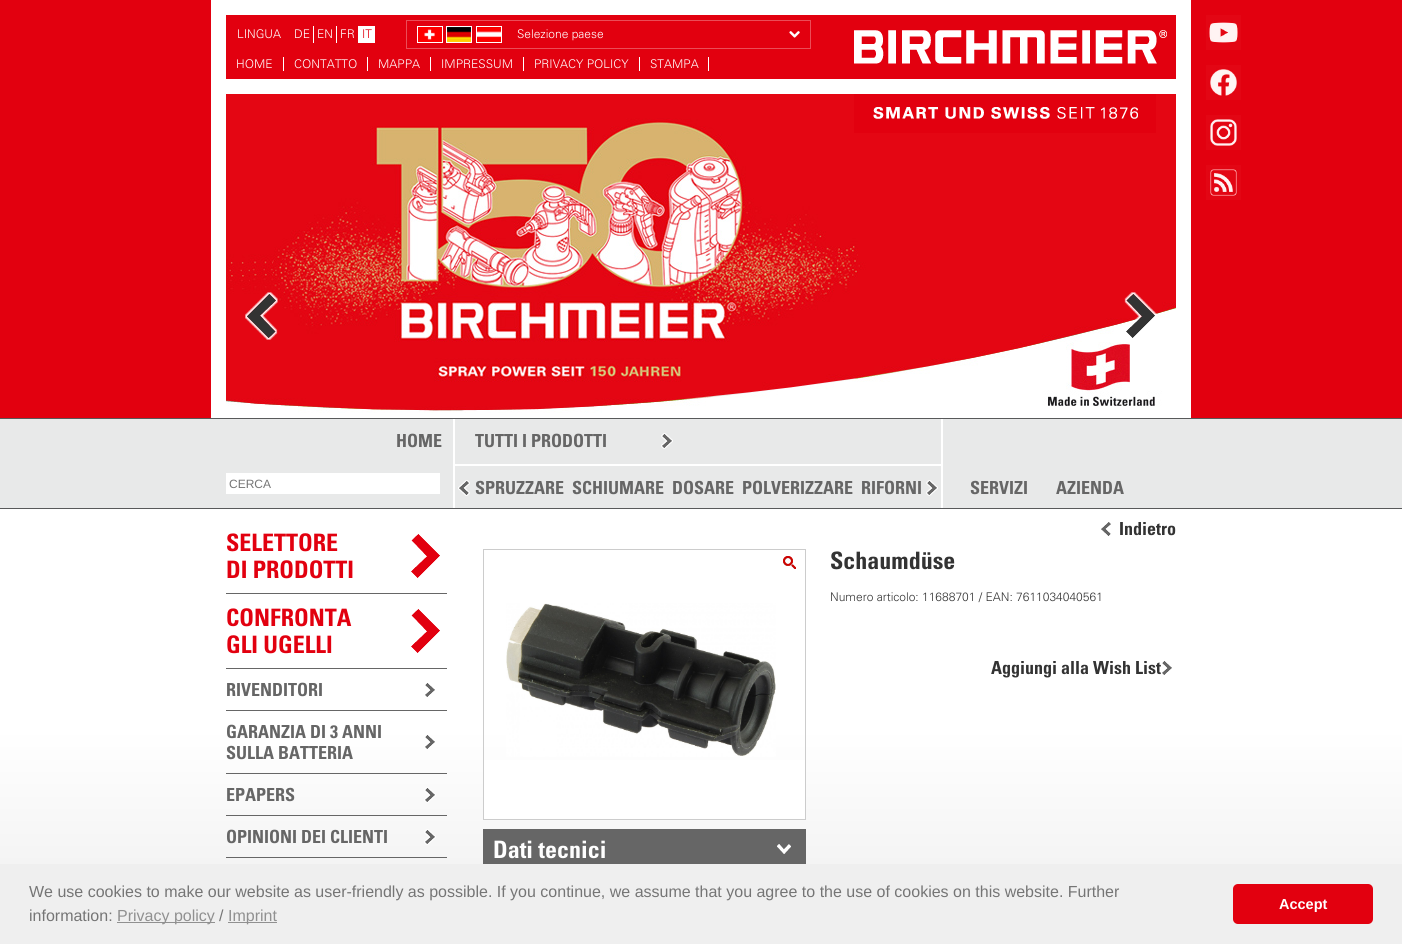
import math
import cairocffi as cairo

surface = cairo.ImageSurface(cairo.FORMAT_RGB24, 1402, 944)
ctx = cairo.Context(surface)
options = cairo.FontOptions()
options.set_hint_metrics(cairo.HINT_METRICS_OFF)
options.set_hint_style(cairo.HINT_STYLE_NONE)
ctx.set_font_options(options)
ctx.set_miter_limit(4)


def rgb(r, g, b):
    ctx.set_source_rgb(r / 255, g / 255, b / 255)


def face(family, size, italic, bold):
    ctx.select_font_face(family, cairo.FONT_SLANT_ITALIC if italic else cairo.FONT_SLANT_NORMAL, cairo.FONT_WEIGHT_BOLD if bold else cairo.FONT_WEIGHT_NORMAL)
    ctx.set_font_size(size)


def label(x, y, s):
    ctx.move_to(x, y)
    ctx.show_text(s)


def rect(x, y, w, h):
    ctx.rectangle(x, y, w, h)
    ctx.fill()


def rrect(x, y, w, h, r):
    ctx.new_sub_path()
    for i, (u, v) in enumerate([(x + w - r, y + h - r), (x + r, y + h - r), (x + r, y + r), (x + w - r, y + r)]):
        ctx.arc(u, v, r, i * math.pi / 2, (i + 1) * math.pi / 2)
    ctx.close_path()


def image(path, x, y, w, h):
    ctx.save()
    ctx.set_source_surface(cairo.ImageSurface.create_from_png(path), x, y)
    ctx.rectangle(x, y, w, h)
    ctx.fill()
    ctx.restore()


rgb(255, 255, 255)
ctx.paint()
image('image0.png', 0, 509, 1402, 355)
image('image1.png', 0, 0, 1402, 509)
rgb(255, 255, 255)
rect(211, 0, 980, 418)
rgb(226, 0, 15)
rect(226, 15, 950, 64)
face('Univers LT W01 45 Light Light', 12, 0, 0)
rgb(255, 255, 255)
label(237, 38, 'LINGUA')
rect(313, 26, 1, 17)
label(294, 38, 'DE')
rect(336, 26, 1, 17)
label(317, 38, 'EN')
rect(358, 26, 17, 17)
label(340, 38, 'FR')
rgb(226, 0, 15)
label(362, 38, 'IT')
ctx.rectangle(406.5, 20.5, 404, 28)
rgb(235, 77, 87)
ctx.set_line_width(1)
ctx.stroke()
ctx.rectangle(417.5, 26.5, 25, 16)
rgb(255, 255, 255)
ctx.stroke()
image('image2.png', 418, 27, 24, 15)
ctx.rectangle(446.5, 26.5, 25, 16)
ctx.stroke()
image('image3.png', 447, 27, 24, 15)
ctx.rectangle(476.5, 26.5, 25, 16)
ctx.stroke()
image('image4.png', 477, 27, 24, 15)
label(517, 38, 'Selezione paese')
image('image5.png', 789, 31, 11, 7)
image('image6.png', 854, 30, 313, 34)
image('image7.png', 1206, 15, 35, 35)
image('image8.png', 1206, 65, 35, 35)
image('image9.png', 1206, 115, 35, 35)
image('image10.png', 1206, 165, 35, 35)
label(236, 68, 'HOME')
rect(283, 57, 1, 14)
label(294, 68, 'CONTATTO')
rect(367, 57, 1, 14)
label(378, 68, 'MAPPA')
rect(430, 57, 1, 14)
label(441, 68, 'IMPRESSUM')
rect(523, 57, 1, 14)
label(534, 68, 'PRIVACY POLICY')
rect(639, 57, 1, 14)
label(650, 68, 'STAMPA')
rect(708, 57, 1, 14)
image('image12.png', 226, 94, 950, 319)
image('image11.png', 854, 94, 302, 39)
image('image13.png', 245, 292, 33, 48)
image('image14.png', 1124, 292, 33, 46)
rect(226, 473, 214, 21)
face('Liberation Sans', 12, 0, 0)
rgb(117, 117, 117)
label(229, 488, 'CERCA')
face('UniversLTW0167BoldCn', 18, 0, 1)
rgb(102, 102, 102)
label(396, 447, 'HOME')
image('image15.png', 661, 433, 12, 16)
rgb(255, 255, 255)
rect(941, 419, 2, 47)
rect(453, 464, 490, 2)
rect(453, 419, 2, 89)
rgb(102, 102, 102)
label(475, 447, 'TUTTI I PRODOTTI')
rgb(255, 255, 255)
rect(941, 464, 2, 44)
image('image16.png', 458, 480, 12, 16)
rgb(102, 102, 102)
label(475, 494, 'SPRUZZARE')
label(572, 494, 'SCHIUMARE')
label(672, 494, 'DOSARE')
label(742, 494, 'POLVERIZZARE')
label(861, 494, 'RIFORNI')
image('image15.png', 926, 480, 12, 16)
label(970, 494, 'SERVIZI')
label(1056, 494, 'AZIENDA')
image('image17.png', 411, 534, 29, 44)
rect(226, 593, 221, 1)
face('UniversLTW0167BoldCn', 24, 0, 1)
rgb(226, 0, 15)
label(226, 551, 'SELETTORE')
label(226, 578, 'DI PRODOTTI')
image('image17.png', 411, 609, 29, 44)
rgb(102, 102, 102)
rect(226, 668, 221, 1)
rgb(226, 0, 15)
label(226, 626, 'CONFRONTA')
label(226, 653, 'GLI UGELLI')
image('image18.png', 425, 683, 10, 14)
rgb(102, 102, 102)
rect(226, 710, 221, 1)
face('UniversLTW0167BoldCn', 18, 0, 1)
label(226, 696, 'RIVENDITORI')
image('image19.png', 425, 735, 10, 14)
rect(226, 773, 221, 1)
label(226, 738, 'GARANZIA DI 3 ANNI')
label(226, 759, 'SULLA BATTERIA')
image('image20.png', 424, 787, 12, 16)
rect(226, 815, 221, 1)
label(226, 801, 'EPAPERS')
image('image21.png', 424, 829, 12, 16)
rect(226, 857, 221, 1)
label(226, 843, 'OPINIONI DEI CLIENTI')
rgb(255, 255, 255)
rect(484, 760, 321, 59)
ctx.rectangle(483.5, 549.5, 322, 270)
rgb(204, 204, 204)
ctx.stroke()
image('image22.png', 506, 603, 270, 154)
image('image23.png', 783, 556, 13, 13)
image('image24.png', 783, 556, 13, 13)
image('image25.png', 1101, 522, 10, 14)
rgb(51, 51, 51)
label(1119, 535, 'Indietro')
face('UniversLTW0167BoldCn', 24, 0, 1)
label(830, 569, 'Schaumdüse')
face('Univers LT W01 45 Light Light', 12, 0, 0)
label(830, 601, 'Numero articolo: 11688701 / EAN: 7611034040561')
image('image18.png', 1162, 661, 10, 14)
face('UniversLTW0167BoldCn', 18, 0, 1)
label(991, 674, 'Aggiungi alla Wish List')
rgb(102, 102, 102)
rect(483, 829, 323, 35)
image('image26.png', 777, 844, 14, 10)
face('UniversLTW0167BoldCn', 24, 0, 1)
rgb(255, 255, 255)
label(493, 858, 'Dati tecnici')
rgb(239, 239, 239)
rect(0, 864, 1402, 80)
face('Liberation Sans', 16, 0, 0)
rgb(117, 117, 117)
label(29, 897, 'We use cookies to make our website as user-friendly as possible. If you continue, we assume that you agree to the use of cookies on this website. Further')
label(29, 921, 'information:')
rgb(144, 144, 144)
rect(117, 922, 98, 1)
label(117, 921, 'Privacy policy')
rgb(117, 117, 117)
label(219, 921, '/')
rgb(144, 144, 144)
rect(228, 922, 49, 1)
label(228, 921, 'Imprint')
rgb(226, 0, 15)
rrect(1233, 884, 140, 40, 5)
ctx.fill()
face('Liberation Sans', 14.5, 0, 1)
rgb(255, 255, 255)
label(1279, 909, 'Accept')
surface.write_to_png('render.png')
